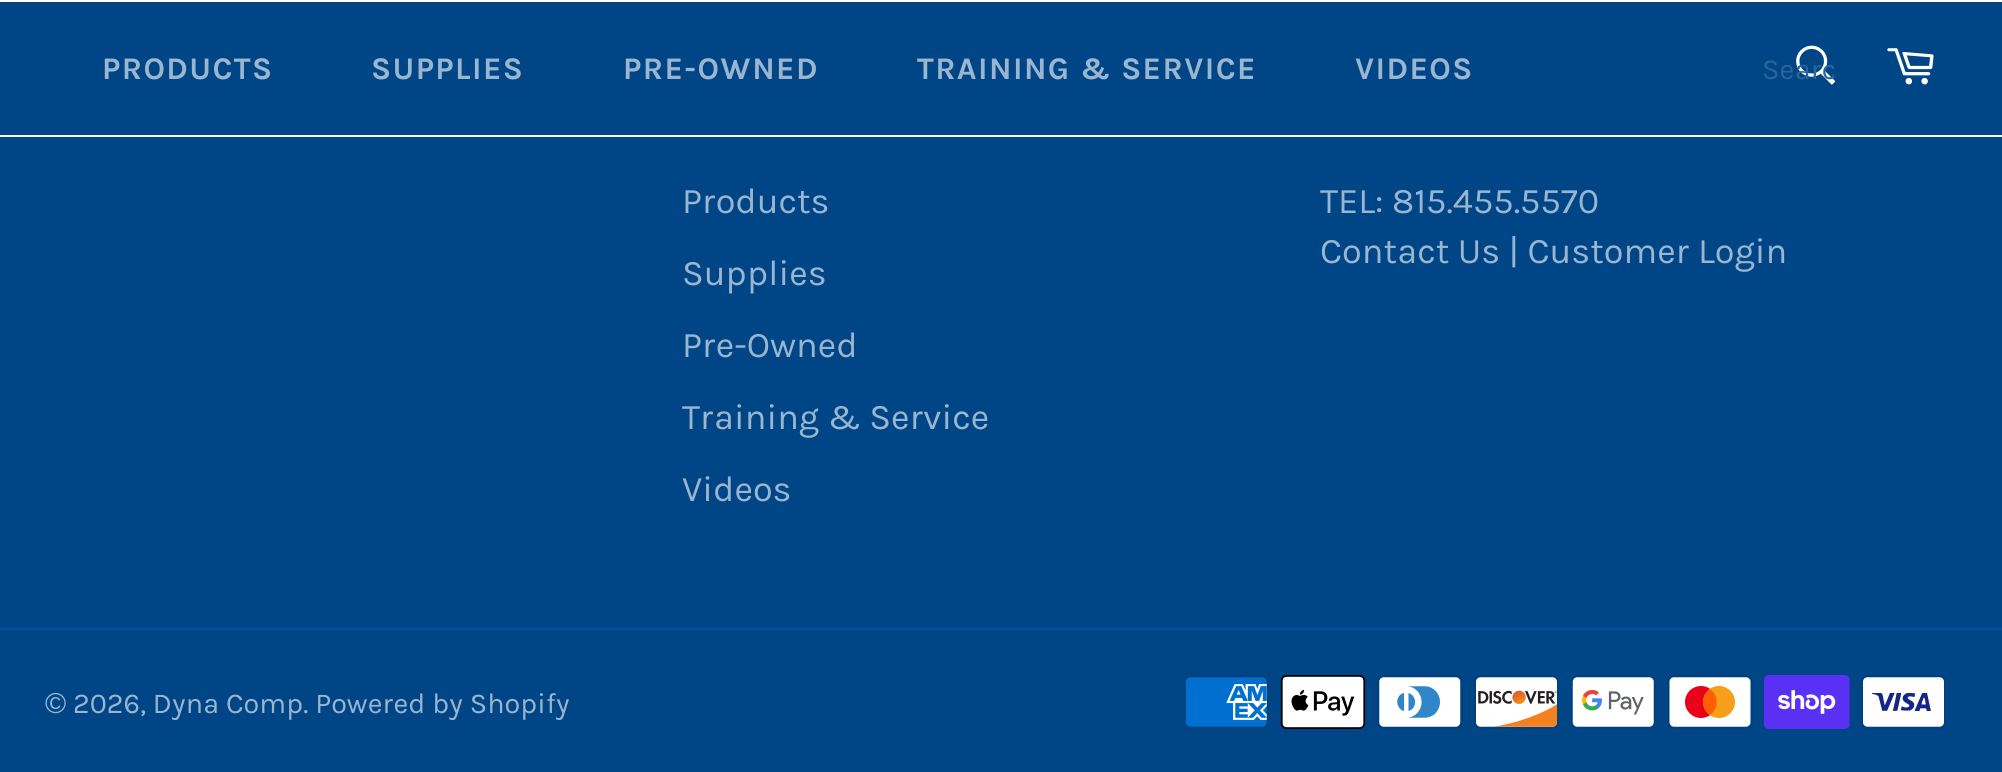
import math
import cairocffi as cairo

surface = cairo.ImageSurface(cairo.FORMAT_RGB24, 2002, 772)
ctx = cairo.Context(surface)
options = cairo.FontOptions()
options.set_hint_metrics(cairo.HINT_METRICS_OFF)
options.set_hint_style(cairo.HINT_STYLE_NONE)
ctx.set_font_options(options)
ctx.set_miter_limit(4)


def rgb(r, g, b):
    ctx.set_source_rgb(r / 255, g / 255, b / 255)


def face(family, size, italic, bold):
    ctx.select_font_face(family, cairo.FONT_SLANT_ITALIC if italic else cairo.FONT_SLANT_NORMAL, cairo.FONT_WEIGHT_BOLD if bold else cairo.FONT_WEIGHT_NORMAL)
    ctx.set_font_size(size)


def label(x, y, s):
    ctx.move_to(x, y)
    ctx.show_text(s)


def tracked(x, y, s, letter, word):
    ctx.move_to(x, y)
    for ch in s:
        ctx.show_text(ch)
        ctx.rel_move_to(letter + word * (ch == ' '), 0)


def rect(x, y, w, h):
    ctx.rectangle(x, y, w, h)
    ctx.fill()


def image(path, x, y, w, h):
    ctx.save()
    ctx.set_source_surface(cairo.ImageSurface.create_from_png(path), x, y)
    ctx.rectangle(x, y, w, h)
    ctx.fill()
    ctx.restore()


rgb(0, 70, 135)
ctx.paint()
rgb(255, 255, 255)
rect(0, 0, 2002, 2)
rect(0, 135, 2002, 2)
face('Karla', 31.5, 0, 1)
rgb(153, 181, 207)
tracked(102, 79, 'PRODUCTS', 1.4, 0)
tracked(371, 79, 'SUPPLIES', 1.4, 0)
tracked(623, 79, 'PRE-OWNED', 1.4, 0)
tracked(917, 79, 'TRAINING & SERVICE', 1.4, 0)
tracked(1355, 79, 'VIDEOS', 1.4, 0)
image('image0.png', 1796, 45, 40, 40)
ctx.save()
ctx.rectangle(1762, 52, 72, 34)
ctx.clip()
face('Karla', 29, 0, 0)
rgb(42, 100, 155)
label(1762, 79, 'Searc')
ctx.restore()
image('image1.png', 1887, 48, 47, 37)
face('Karla', 36, 0, 0)
label(682, 213, 'Products')
label(682, 285, 'Supplies')
label(682, 357, 'Pre-Owned')
label(682, 429, 'Training & Service')
label(682, 501, 'Videos')
label(1320, 213, 'TEL: 815.455.5570')
label(1320, 263, 'Contact Us | Customer Login')
rgb(0, 83, 161)
rect(0, 628, 2002, 2)
face('Liberation Sans', 28.75, 0, 0)
rgb(153, 181, 207)
label(45, 713, '©')
face('Karla', 28.75, 0, 0)
label(73, 713, '2026, Dyna Comp. Powered by Shopify')
image('image2.png', 1184, 675, 85, 54)
image('image3.png', 1280, 675, 86, 54)
image('image4.png', 1377, 675, 86, 54)
image('image5.png', 1474, 675, 85, 54)
image('image6.png', 1571, 675, 85, 54)
image('image7.png', 1667, 675, 86, 54)
image('image8.png', 1764, 675, 86, 54)
image('image9.png', 1861, 675, 85, 54)
surface.write_to_png('render.png')
